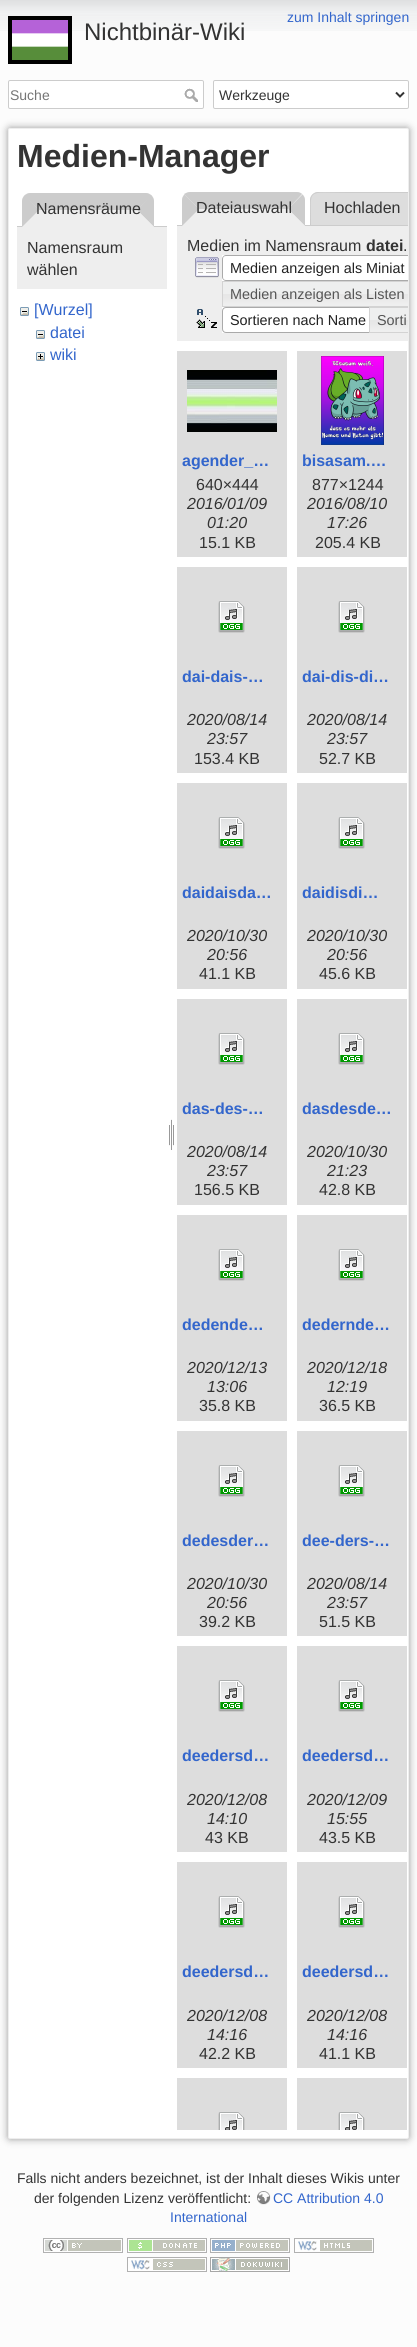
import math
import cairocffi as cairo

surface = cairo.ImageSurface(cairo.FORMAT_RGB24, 417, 2347)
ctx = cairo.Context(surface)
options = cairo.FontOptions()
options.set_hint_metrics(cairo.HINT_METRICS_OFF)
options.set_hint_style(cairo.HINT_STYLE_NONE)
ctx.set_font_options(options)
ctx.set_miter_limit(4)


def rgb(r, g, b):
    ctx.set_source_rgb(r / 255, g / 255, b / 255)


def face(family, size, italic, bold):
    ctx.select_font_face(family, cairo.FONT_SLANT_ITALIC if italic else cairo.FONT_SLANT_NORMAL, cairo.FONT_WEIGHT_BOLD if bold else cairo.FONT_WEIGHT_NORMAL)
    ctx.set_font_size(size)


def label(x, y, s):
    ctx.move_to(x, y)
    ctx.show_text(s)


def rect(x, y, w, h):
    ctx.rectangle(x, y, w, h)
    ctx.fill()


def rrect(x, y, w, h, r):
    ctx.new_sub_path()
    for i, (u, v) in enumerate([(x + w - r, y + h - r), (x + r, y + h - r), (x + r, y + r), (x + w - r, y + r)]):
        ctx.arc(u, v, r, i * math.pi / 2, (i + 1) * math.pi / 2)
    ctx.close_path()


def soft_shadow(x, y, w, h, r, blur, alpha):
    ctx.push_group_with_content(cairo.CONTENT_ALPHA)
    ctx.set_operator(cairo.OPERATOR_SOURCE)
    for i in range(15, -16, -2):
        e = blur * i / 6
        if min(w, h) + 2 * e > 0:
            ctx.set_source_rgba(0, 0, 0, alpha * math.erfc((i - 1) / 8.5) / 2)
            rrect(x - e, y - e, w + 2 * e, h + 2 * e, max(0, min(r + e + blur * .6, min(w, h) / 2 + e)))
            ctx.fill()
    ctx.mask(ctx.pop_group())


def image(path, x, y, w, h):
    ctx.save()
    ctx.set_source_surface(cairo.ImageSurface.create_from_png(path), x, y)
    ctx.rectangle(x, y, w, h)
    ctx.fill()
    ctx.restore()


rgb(252, 252, 252)
ctx.paint()
image('image0.png', 0, 0, 417, 31)
face('Liberation Sans', 14, 0, 0)
rgb(51, 102, 204)
label(287, 22, 'zum Inhalt springen')
image('image1.png', 8, 16, 64, 48)
face('Liberation Sans', 24, 0, 0)
rgb(51, 51, 51)
label(84, 40, 'Nichtbinär-Wiki')
rgb(255, 255, 255)
rrect(8.5, 80.5, 195, 28, 1.5)
ctx.fill_preserve()
rgb(204, 204, 204)
ctx.set_line_width(1)
ctx.stroke()
face('Liberation Sans', 14, 0, 0)
rgb(117, 117, 117)
label(10, 100, 'Suche')
image('image2.png', 184, 88, 14, 14)
rgb(255, 255, 255)
rrect(213.5, 80.5, 195, 28, 1.5)
ctx.fill_preserve()
rgb(204, 204, 204)
ctx.stroke()
ctx.new_path()
ctx.move_to(396, 92.5)
ctx.line_to(400, 96.5)
ctx.line_to(404, 92.5)
rgb(51, 51, 51)
ctx.set_line_width(2)
ctx.stroke()
label(219, 100, 'Werkzeuge')
rgb(153, 153, 153)
soft_shadow(8, 128, 401, 2011, 2, 4, 1)
rgb(255, 255, 255)
rrect(8.5, 128.5, 400, 2010, 1.5)
ctx.fill_preserve()
rgb(238, 238, 238)
ctx.set_line_width(1)
ctx.stroke()
face('Liberation Sans', 32, 0, 1)
rgb(51, 51, 51)
label(17, 167, 'Medien-Manager')
rgb(204, 204, 204)
rect(17, 226, 150, 1)
rgb(238, 238, 238)
ctx.new_path()
ctx.move_to(30, 193)
ctx.line_to(146, 193)
ctx.curve_to(150.5, 193, 154, 196.5, 154, 201)
ctx.line_to(154, 227)
ctx.line_to(22, 227)
ctx.line_to(22, 201)
ctx.curve_to(22, 196.5, 25.5, 193, 30, 193)
ctx.close_path()
ctx.fill()
rgb(204, 204, 204)
ctx.new_path()
ctx.move_to(30, 193)
ctx.line_to(146, 193)
ctx.curve_to(148, 193, 150, 194, 152, 196)
ctx.line_to(137, 210)
ctx.line_to(39, 210)
ctx.line_to(24, 196)
ctx.curve_to(26, 194, 28, 193, 30, 193)
ctx.close_path()
ctx.fill()
ctx.new_path()
ctx.move_to(151.5, 195.5)
ctx.line_to(137, 210)
ctx.line_to(154, 227)
ctx.line_to(154, 201)
ctx.curve_to(154, 199, 153, 197, 151.5, 195.5)
ctx.close_path()
ctx.fill()
rgb(238, 238, 238)
ctx.new_path()
ctx.move_to(154, 227)
ctx.line_to(137, 210)
ctx.line_to(39, 210)
ctx.line_to(22, 227)
ctx.close_path()
ctx.fill()
rgb(204, 204, 204)
ctx.new_path()
ctx.move_to(22, 227)
ctx.line_to(22, 201)
ctx.curve_to(22, 199, 23, 197, 24.5, 195.5)
ctx.line_to(39, 210)
ctx.close_path()
ctx.fill()
face('Liberation Sans', 16, 0, 0)
rgb(51, 51, 51)
label(36, 214, 'Namensräume')
rgb(238, 238, 238)
rect(17, 227, 150, 62)
rgb(51, 51, 51)
label(27, 253, 'Namensraum')
label(27, 275, 'wählen')
image('image3.png', 20, 307, 9, 9)
rgb(51, 102, 204)
label(34, 315, '[Wurzel]')
image('image3.png', 36, 330, 9, 9)
label(50, 338, 'datei')
image('image4.png', 36, 352, 9, 9)
label(50, 360, 'wiki')
image('image5.png', 169, 1119, 5, 31)
rgb(204, 204, 204)
rect(177, 225, 133, 1)
rgb(238, 238, 238)
ctx.new_path()
ctx.move_to(190, 192)
ctx.line_to(297, 192)
ctx.curve_to(301.5, 192, 305, 195.5, 305, 200)
ctx.line_to(305, 226)
ctx.line_to(182, 226)
ctx.line_to(182, 200)
ctx.curve_to(182, 195.5, 185.5, 192, 190, 192)
ctx.close_path()
ctx.fill()
rgb(204, 204, 204)
ctx.new_path()
ctx.move_to(190, 192)
ctx.line_to(297, 192)
ctx.curve_to(299, 192, 301, 193, 302, 194)
ctx.line_to(288, 209)
ctx.line_to(199, 209)
ctx.line_to(184, 194)
ctx.curve_to(186, 193, 188, 192, 190, 192)
ctx.close_path()
ctx.fill()
ctx.new_path()
ctx.move_to(302.5, 194.5)
ctx.line_to(288, 209)
ctx.line_to(305, 226)
ctx.line_to(305, 200)
ctx.curve_to(305, 198, 304, 196, 302.5, 194.5)
ctx.close_path()
ctx.fill()
rgb(238, 238, 238)
ctx.new_path()
ctx.move_to(305, 226)
ctx.line_to(288, 209)
ctx.line_to(199, 209)
ctx.line_to(182, 226)
ctx.close_path()
ctx.fill()
rgb(204, 204, 204)
ctx.new_path()
ctx.move_to(182, 226)
ctx.line_to(182, 200)
ctx.curve_to(182, 198, 183, 196, 184.5, 194.5)
ctx.line_to(199, 209)
ctx.close_path()
ctx.fill()
rgb(51, 51, 51)
label(196, 213, 'Dateiauswahl')
ctx.save()
rrect(9, 129, 399, 2009, 1)
ctx.clip()
rgb(221, 221, 221)
ctx.new_path()
ctx.move_to(318, 192)
ctx.line_to(406, 192)
ctx.curve_to(410.5, 192, 414, 195.5, 414, 200)
ctx.line_to(414, 226)
ctx.line_to(310, 226)
ctx.line_to(310, 200)
ctx.curve_to(310, 195.5, 313.5, 192, 318, 192)
ctx.close_path()
ctx.fill()
ctx.restore()
rgb(204, 204, 204)
ctx.new_path()
ctx.move_to(318, 192)
ctx.curve_to(314, 192, 310, 196, 310, 200)
ctx.line_to(310, 226)
ctx.line_to(408, 226)
ctx.line_to(408, 225)
ctx.line_to(311, 225)
ctx.curve_to(311, 187, 305, 193, 347, 193)
ctx.line_to(408, 193)
ctx.line_to(408, 192)
ctx.line_to(406, 192)
ctx.close_path()
ctx.fill()
rgb(51, 51, 51)
label(324, 213, 'Hochladen')
rgb(238, 238, 238)
rect(177, 226, 231, 115)
rgb(51, 51, 51)
label(187, 251, 'Medien im Namensraum')
face('Liberation Sans', 16, 0, 1)
label(366, 251, 'datei')
face('Liberation Sans', 16, 0, 0)
label(403, 251, '.')
image('image6.png', 195, 257, 24, 21)
rgb(255, 255, 255)
rect(222, 255, 186, 26)
rgb(170, 170, 170)
ctx.new_path()
ctx.move_to(226, 255)
ctx.curve_to(224, 255, 222, 257, 222, 259)
ctx.line_to(222, 277)
ctx.curve_to(222, 279, 224, 281, 226, 281)
ctx.line_to(408, 281)
ctx.line_to(408, 280)
ctx.line_to(226, 280)
ctx.curve_to(224, 280, 223, 279, 223, 277)
ctx.line_to(223, 259)
ctx.curve_to(223, 257, 224, 256, 226, 256)
ctx.line_to(408, 256)
ctx.line_to(408, 255)
ctx.close_path()
ctx.fill()
face('Liberation Sans', 14.4, 0, 0)
rgb(33, 33, 33)
label(230, 273, 'Medien anzeigen als Miniat')
image('image7.png', 223, 282, 185, 24)
rgb(211, 211, 211)
ctx.new_path()
ctx.move_to(222, 281)
ctx.line_to(222, 307)
ctx.line_to(408, 307)
ctx.line_to(408, 306)
ctx.line_to(223, 306)
ctx.line_to(223, 282)
ctx.line_to(408, 282)
ctx.line_to(408, 281)
ctx.close_path()
ctx.fill()
rgb(85, 85, 85)
label(230, 299, 'Medien anzeigen als Listen')
image('image8.png', 196, 309, 21, 19)
rgb(255, 255, 255)
rect(222, 307, 147, 26)
ctx.new_path()
ctx.move_to(226, 307.5)
ctx.line_to(373.5, 307.5)
ctx.line_to(373.5, 332.5)
ctx.line_to(226, 332.5)
ctx.curve_to(224, 332.5, 222.5, 331, 222.5, 329)
ctx.line_to(222.5, 311)
ctx.curve_to(222.5, 309, 224, 307.5, 226, 307.5)
ctx.close_path()
rgb(170, 170, 170)
ctx.stroke()
rgb(33, 33, 33)
label(230, 325, 'Sortieren nach Name')
image('image9.png', 370, 308, 38, 24)
rgb(211, 211, 211)
ctx.new_path()
ctx.move_to(369, 307)
ctx.line_to(369, 333)
ctx.line_to(408, 333)
ctx.line_to(408, 332)
ctx.line_to(370, 332)
ctx.line_to(370, 308)
ctx.line_to(408, 308)
ctx.line_to(408, 307)
ctx.close_path()
ctx.fill()
rgb(85, 85, 85)
label(377, 325, 'Sorti')
rgb(221, 221, 221)
rect(177, 351, 110, 206)
image('image10.png', 187, 370, 90, 62)
face('Liberation Sans', 16, 0, 1)
rgb(51, 102, 204)
label(182, 466, 'agender_…')
face('Liberation Sans', 16, 0, 0)
rgb(51, 51, 51)
label(196, 490, '640×444')
face('Liberation Sans', 16, 1, 0)
label(187, 509, '2016/01/09')
label(207, 528, '01:20')
face('Liberation Sans', 16, 0, 0)
label(199, 548, '15.1 KB')
rgb(221, 221, 221)
rect(297, 351, 110, 206)
image('image11.png', 321, 356, 63, 89)
face('Liberation Sans', 16, 0, 1)
rgb(51, 102, 204)
label(302, 466, 'bisasam.…')
face('Liberation Sans', 16, 0, 0)
rgb(51, 51, 51)
label(312, 490, '877×1244')
face('Liberation Sans', 16, 1, 0)
label(307, 509, '2016/08/10')
label(327, 528, '17:26')
face('Liberation Sans', 16, 0, 0)
label(315, 548, '205.4 KB')
rgb(221, 221, 221)
rect(177, 567, 110, 206)
image('image12.png', 218, 601, 27, 32)
face('Liberation Sans', 16, 0, 1)
rgb(51, 102, 204)
label(182, 682, 'dai-dais-…')
face('Liberation Sans', 16, 1, 0)
rgb(51, 51, 51)
label(187, 725, '2020/08/14')
label(207, 744, '23:57')
face('Liberation Sans', 16, 0, 0)
label(194, 764, '153.4 KB')
rgb(221, 221, 221)
rect(297, 567, 110, 206)
image('image12.png', 338, 601, 27, 32)
face('Liberation Sans', 16, 0, 1)
rgb(51, 102, 204)
label(302, 682, 'dai-dis-di…')
face('Liberation Sans', 16, 1, 0)
rgb(51, 51, 51)
label(307, 725, '2020/08/14')
label(327, 744, '23:57')
face('Liberation Sans', 16, 0, 0)
label(319, 764, '52.7 KB')
rgb(221, 221, 221)
rect(177, 783, 110, 206)
image('image12.png', 218, 817, 27, 32)
face('Liberation Sans', 16, 0, 1)
rgb(51, 102, 204)
label(182, 898, 'daidaisda…')
face('Liberation Sans', 16, 1, 0)
rgb(51, 51, 51)
label(187, 941, '2020/10/30')
label(207, 960, '20:56')
face('Liberation Sans', 16, 0, 0)
label(199, 979, '41.1 KB')
rgb(221, 221, 221)
rect(297, 783, 110, 206)
image('image12.png', 338, 817, 27, 32)
face('Liberation Sans', 16, 0, 1)
rgb(51, 102, 204)
label(302, 898, 'daidisdi…')
face('Liberation Sans', 16, 1, 0)
rgb(51, 51, 51)
label(307, 941, '2020/10/30')
label(327, 960, '20:56')
face('Liberation Sans', 16, 0, 0)
label(319, 979, '45.6 KB')
rgb(221, 221, 221)
rect(177, 999, 110, 206)
image('image12.png', 218, 1033, 27, 32)
face('Liberation Sans', 16, 0, 1)
rgb(51, 102, 204)
label(182, 1114, 'das-des-…')
face('Liberation Sans', 16, 1, 0)
rgb(51, 51, 51)
label(187, 1157, '2020/08/14')
label(207, 1176, '23:57')
face('Liberation Sans', 16, 0, 0)
label(194, 1195, '156.5 KB')
rgb(221, 221, 221)
rect(297, 999, 110, 206)
image('image12.png', 338, 1033, 27, 32)
face('Liberation Sans', 16, 0, 1)
rgb(51, 102, 204)
label(302, 1114, 'dasdesde…')
face('Liberation Sans', 16, 1, 0)
rgb(51, 51, 51)
label(307, 1157, '2020/10/30')
label(327, 1176, '21:23')
face('Liberation Sans', 16, 0, 0)
label(319, 1195, '42.8 KB')
rgb(221, 221, 221)
rect(177, 1215, 110, 206)
image('image12.png', 218, 1249, 27, 32)
face('Liberation Sans', 16, 0, 1)
rgb(51, 102, 204)
label(182, 1330, 'dedende…')
face('Liberation Sans', 16, 1, 0)
rgb(51, 51, 51)
label(187, 1373, '2020/12/13')
label(207, 1392, '13:06')
face('Liberation Sans', 16, 0, 0)
label(199, 1411, '35.8 KB')
rgb(221, 221, 221)
rect(297, 1215, 110, 206)
image('image12.png', 338, 1249, 27, 32)
face('Liberation Sans', 16, 0, 1)
rgb(51, 102, 204)
label(302, 1330, 'dedernde…')
face('Liberation Sans', 16, 1, 0)
rgb(51, 51, 51)
label(307, 1373, '2020/12/18')
label(327, 1392, '12:19')
face('Liberation Sans', 16, 0, 0)
label(319, 1411, '36.5 KB')
rgb(221, 221, 221)
rect(177, 1431, 110, 205)
image('image12.png', 218, 1465, 27, 32)
face('Liberation Sans', 16, 0, 1)
rgb(51, 102, 204)
label(182, 1546, 'dedesder…')
face('Liberation Sans', 16, 1, 0)
rgb(51, 51, 51)
label(187, 1589, '2020/10/30')
label(207, 1608, '20:56')
face('Liberation Sans', 16, 0, 0)
label(199, 1627, '39.2 KB')
rgb(221, 221, 221)
rect(297, 1431, 110, 205)
image('image12.png', 338, 1465, 27, 32)
face('Liberation Sans', 16, 0, 1)
rgb(51, 102, 204)
label(302, 1546, 'dee-ders-…')
face('Liberation Sans', 16, 1, 0)
rgb(51, 51, 51)
label(307, 1589, '2020/08/14')
label(327, 1608, '23:57')
face('Liberation Sans', 16, 0, 0)
label(319, 1627, '51.5 KB')
rgb(221, 221, 221)
rect(177, 1646, 110, 206)
image('image12.png', 218, 1680, 27, 32)
face('Liberation Sans', 16, 0, 1)
rgb(51, 102, 204)
label(182, 1761, 'deedersd…')
face('Liberation Sans', 16, 1, 0)
rgb(51, 51, 51)
label(187, 1805, '2020/12/08')
label(207, 1824, '14:10')
face('Liberation Sans', 16, 0, 0)
label(205, 1843, '43 KB')
rgb(221, 221, 221)
rect(297, 1646, 110, 206)
image('image12.png', 338, 1680, 27, 32)
face('Liberation Sans', 16, 0, 1)
rgb(51, 102, 204)
label(302, 1761, 'deedersd…')
face('Liberation Sans', 16, 1, 0)
rgb(51, 51, 51)
label(307, 1805, '2020/12/09')
label(327, 1824, '15:55')
face('Liberation Sans', 16, 0, 0)
label(319, 1843, '43.5 KB')
rgb(221, 221, 221)
rect(177, 1862, 110, 206)
image('image12.png', 218, 1896, 27, 32)
face('Liberation Sans', 16, 0, 1)
rgb(51, 102, 204)
label(182, 1977, 'deedersd…')
face('Liberation Sans', 16, 1, 0)
rgb(51, 51, 51)
label(187, 2021, '2020/12/08')
label(207, 2040, '14:16')
face('Liberation Sans', 16, 0, 0)
label(199, 2059, '42.2 KB')
rgb(221, 221, 221)
rect(297, 1862, 110, 206)
image('image12.png', 338, 1896, 27, 32)
face('Liberation Sans', 16, 0, 1)
rgb(51, 102, 204)
label(302, 1977, 'deedersd…')
face('Liberation Sans', 16, 1, 0)
rgb(51, 51, 51)
label(307, 2021, '2020/12/08')
label(327, 2040, '14:16')
face('Liberation Sans', 16, 0, 0)
label(319, 2059, '41.1 KB')
rgb(221, 221, 221)
rect(177, 2078, 110, 52)
image('image13.png', 218, 2112, 27, 18)
rect(297, 2078, 110, 52)
image('image13.png', 338, 2112, 27, 18)
face('Liberation Sans', 14, 0, 0)
rgb(51, 51, 51)
label(17, 2183, 'Falls nicht anders bezeichnet, ist der Inhalt dieses Wikis unter')
label(34, 2203, 'der folgenden Lizenz veröffentlicht:')
image('image14.png', 257, 2191, 14, 14)
rgb(51, 102, 204)
label(273, 2203, 'CC Attribution 4.0')
label(170, 2222, 'International')
image('image15.png', 43, 2238, 80, 15)
image('image16.png', 127, 2238, 80, 15)
image('image17.png', 210, 2238, 80, 15)
image('image18.png', 294, 2238, 80, 15)
image('image19.png', 127, 2257, 80, 15)
image('image20.png', 210, 2257, 80, 15)
surface.write_to_png('render.png')
